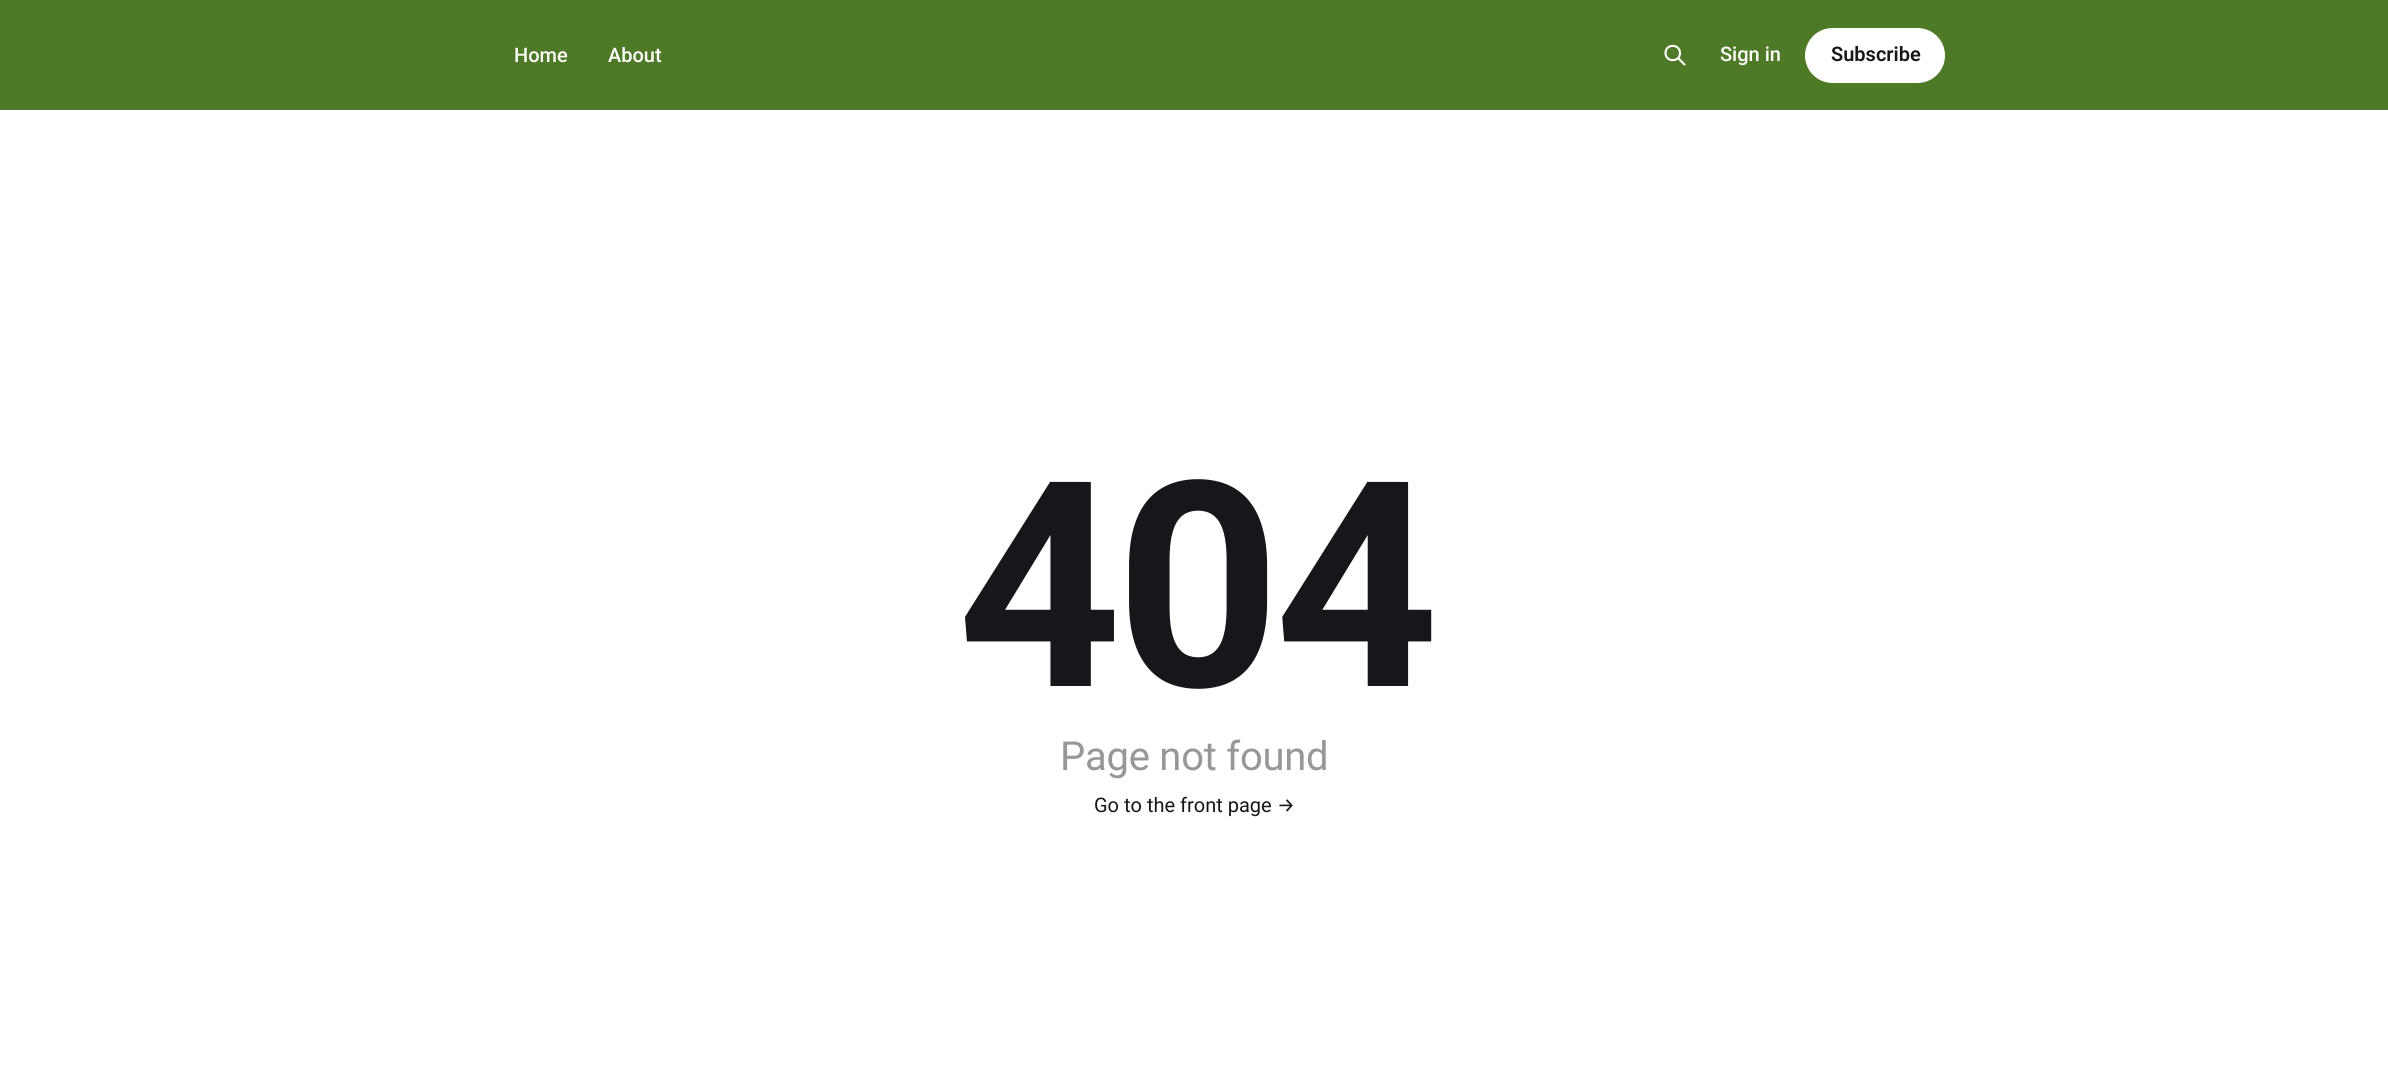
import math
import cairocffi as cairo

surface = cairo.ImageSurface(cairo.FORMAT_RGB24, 2388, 1069)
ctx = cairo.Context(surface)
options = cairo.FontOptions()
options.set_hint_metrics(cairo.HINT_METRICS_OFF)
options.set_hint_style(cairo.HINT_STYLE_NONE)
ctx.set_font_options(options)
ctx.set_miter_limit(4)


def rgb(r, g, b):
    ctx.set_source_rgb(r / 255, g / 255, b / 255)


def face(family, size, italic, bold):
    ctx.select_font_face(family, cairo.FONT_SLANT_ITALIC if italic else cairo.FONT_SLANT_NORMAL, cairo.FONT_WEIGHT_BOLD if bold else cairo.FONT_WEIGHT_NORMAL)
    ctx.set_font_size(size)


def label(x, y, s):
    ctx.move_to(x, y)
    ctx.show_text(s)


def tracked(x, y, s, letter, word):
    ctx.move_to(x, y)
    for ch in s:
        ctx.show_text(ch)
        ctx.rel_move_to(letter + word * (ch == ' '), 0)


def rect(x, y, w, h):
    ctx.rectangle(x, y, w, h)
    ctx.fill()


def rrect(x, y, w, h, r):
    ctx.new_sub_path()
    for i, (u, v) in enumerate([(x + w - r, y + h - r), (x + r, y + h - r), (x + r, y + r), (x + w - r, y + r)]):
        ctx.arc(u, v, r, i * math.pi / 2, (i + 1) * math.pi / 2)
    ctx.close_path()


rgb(255, 255, 255)
ctx.paint()
rgb(78, 122, 39)
rect(0, 0, 2388, 110)
face('Roboto Medium', 20, 0, 0)
rgb(255, 255, 255)
label(514, 62, 'Home')
label(608, 62, 'About')
ctx.new_path()
ctx.move_to(1684.5, 64.5)
ctx.line_to(1678, 58)
ctx.move_to(1680, 53)
ctx.curve_to(1680, 62.5, 1665.5, 62.5, 1665.5, 53)
ctx.curve_to(1665.5, 43.5, 1680, 43.5, 1680, 53)
ctx.close_path()
ctx.set_line_width(2.1)
ctx.set_line_cap(cairo.LINE_CAP_ROUND)
ctx.set_line_join(cairo.LINE_JOIN_ROUND)
ctx.stroke()
label(1720, 61, 'Sign in')
rrect(1805, 28, 140, 55, 27.5)
ctx.fill()
face('Roboto SemiBold', 20, 0, 0)
rgb(21, 23, 26)
label(1831, 61, 'Subscribe')
face('Roboto', 287, 0, 1)
tracked(957, 686, '404', -6, 0)
face('Roboto', 40, 0, 0)
rgb(151, 151, 151)
tracked(1060, 770, 'Page not found', -0.25, 0)
face('Roboto', 20, 0, 0)
rgb(21, 23, 26)
label(1094, 812, 'Go to the front page')
face('Fira Sans', 20, 0, 0)
label(1277, 812, '→')
surface.write_to_png('render.png')
